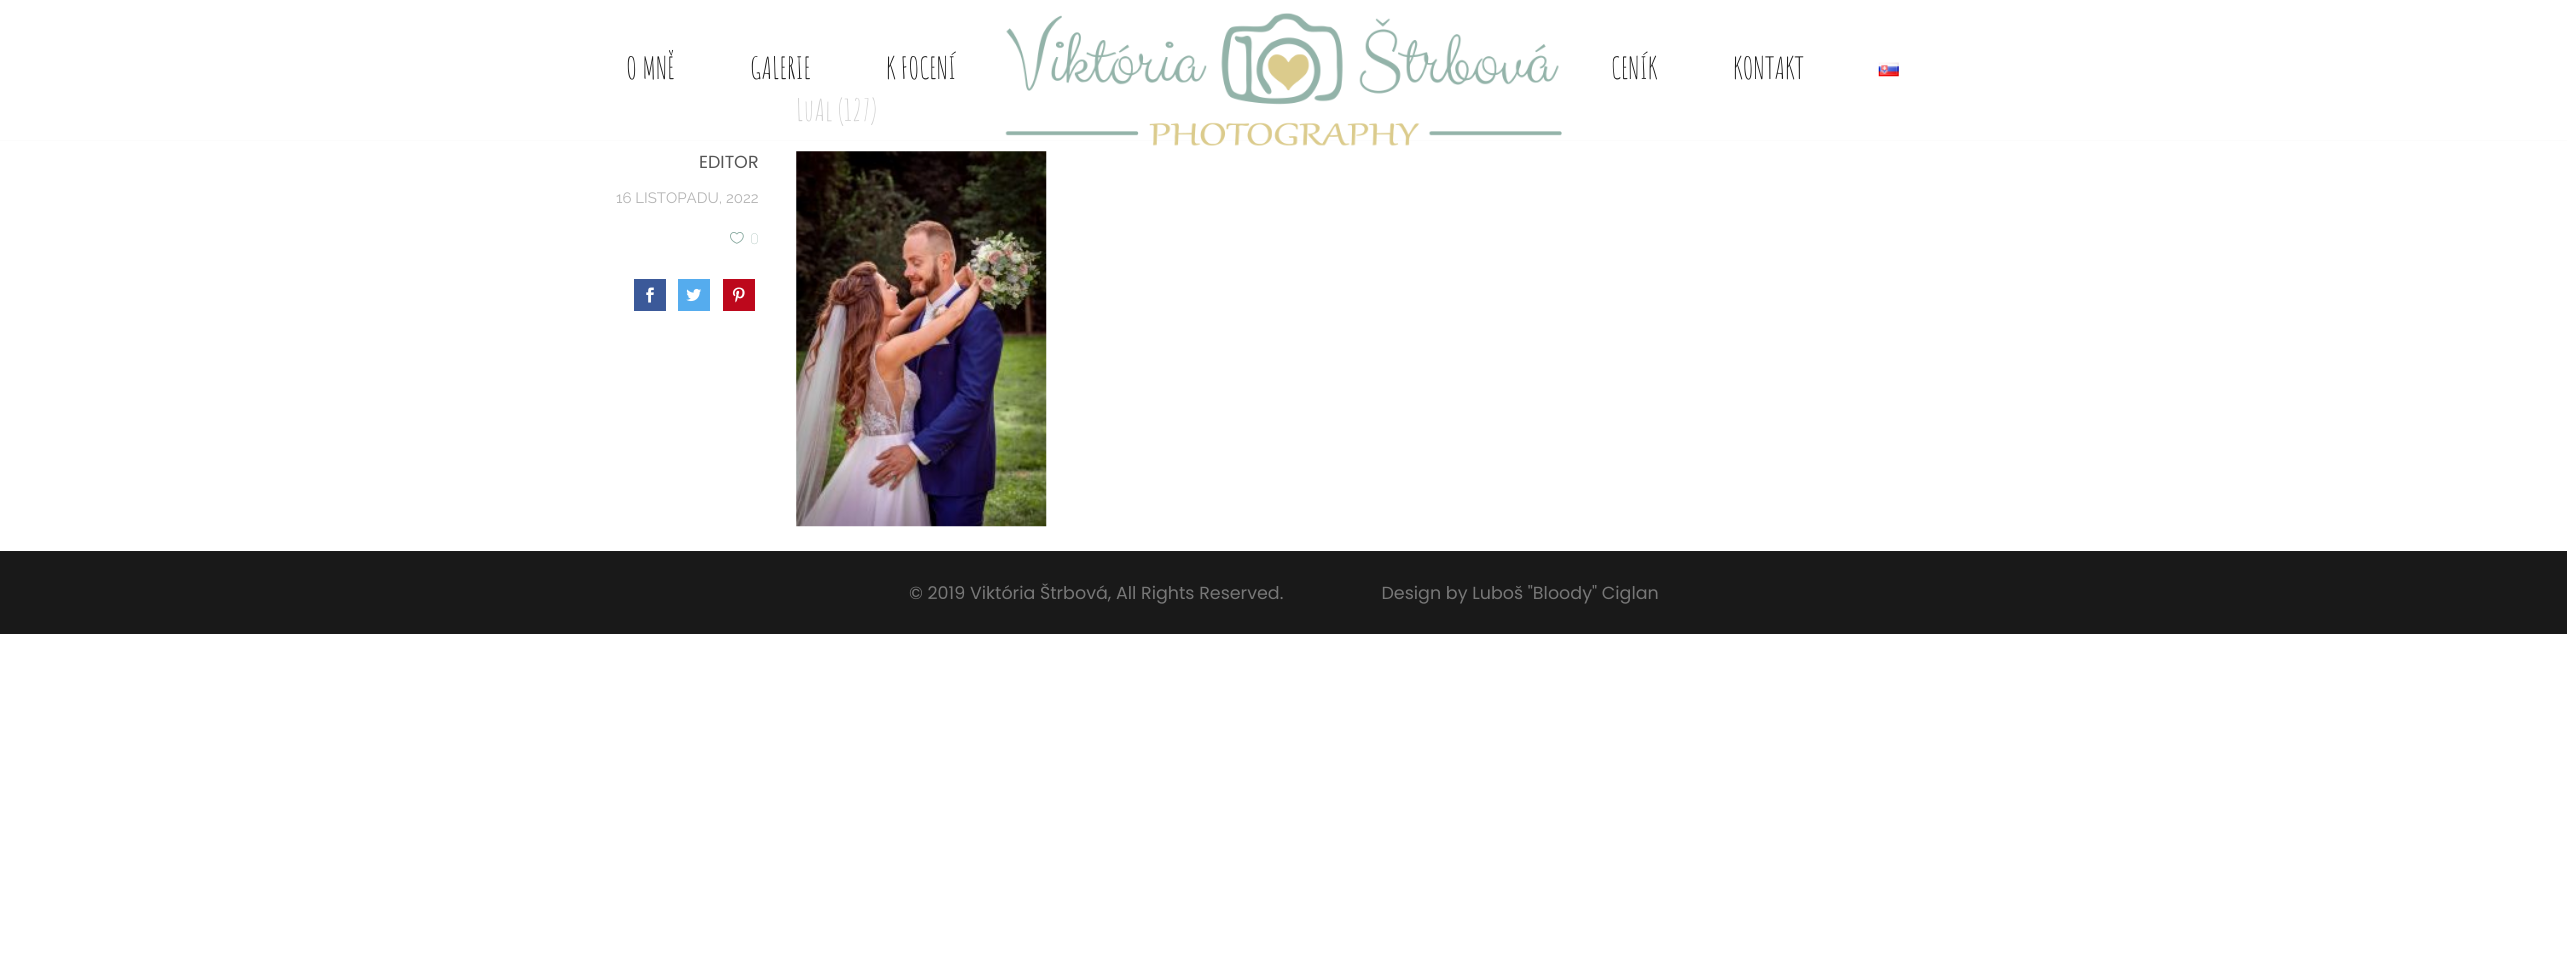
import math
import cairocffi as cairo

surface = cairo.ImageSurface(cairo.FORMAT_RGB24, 2567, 978)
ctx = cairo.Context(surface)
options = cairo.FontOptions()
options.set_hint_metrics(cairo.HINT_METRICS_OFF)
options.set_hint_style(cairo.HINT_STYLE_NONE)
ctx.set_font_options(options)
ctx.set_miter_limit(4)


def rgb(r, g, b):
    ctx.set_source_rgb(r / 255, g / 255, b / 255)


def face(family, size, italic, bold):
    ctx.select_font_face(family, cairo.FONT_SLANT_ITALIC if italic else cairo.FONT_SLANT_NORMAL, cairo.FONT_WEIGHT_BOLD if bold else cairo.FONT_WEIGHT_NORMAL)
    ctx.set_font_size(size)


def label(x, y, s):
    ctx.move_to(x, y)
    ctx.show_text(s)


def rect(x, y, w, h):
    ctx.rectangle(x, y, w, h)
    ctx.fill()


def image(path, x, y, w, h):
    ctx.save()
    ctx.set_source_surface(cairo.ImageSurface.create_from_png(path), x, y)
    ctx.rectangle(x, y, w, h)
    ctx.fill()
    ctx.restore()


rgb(255, 255, 255)
ctx.paint()
rgb(252, 252, 252)
rect(0, 140, 2567, 1)
face('Amatic SC', 30, 0, 0)
rgb(26, 26, 26)
label(626, 79, 'O MNĚ')
label(750, 79, 'GALERIE')
label(886, 79, 'K FOCENÍ')
image('image0.png', 1005, 13, 557, 133)
label(1611, 79, 'CENÍK')
label(1733, 79, 'KONTAKT')
image('image1.png', 1878, 62, 21, 15)
rgb(209, 209, 209)
label(796, 121, 'LuAl (127)')
face('Poppins', 17.5, 0, 0)
rgb(85, 85, 85)
label(699, 168, 'EDITOR')
face('Raleway', 15, 0, 0)
rgb(180, 180, 180)
label(616, 203, '16 LISTOPADU, 2022')
image('image2.png', 730, 232, 14, 12)
face('Poppins Thin', 15, 0, 0)
rgb(134, 168, 158)
label(750, 244, '0')
rgb(59, 89, 153)
rect(634, 279, 32, 32)
image('image3.png', 646, 287, 8, 16)
rgb(85, 172, 238)
rect(678, 279, 32, 32)
image('image4.png', 686, 288, 16, 14)
rgb(189, 8, 28)
rect(723, 279, 32, 32)
image('image5.png', 732, 287, 13, 16)
image('image6.png', 796, 151, 251, 376)
rgb(25, 25, 25)
rect(0, 551, 2567, 83)
face('Poppins', 17.5, 0, 0)
rgb(119, 119, 119)
label(909, 599, '© 2019 Viktória Štrbová, All Rights Reserved.                     Design by Luboš "Bloody" Ciglan')
surface.write_to_png('render.png')
